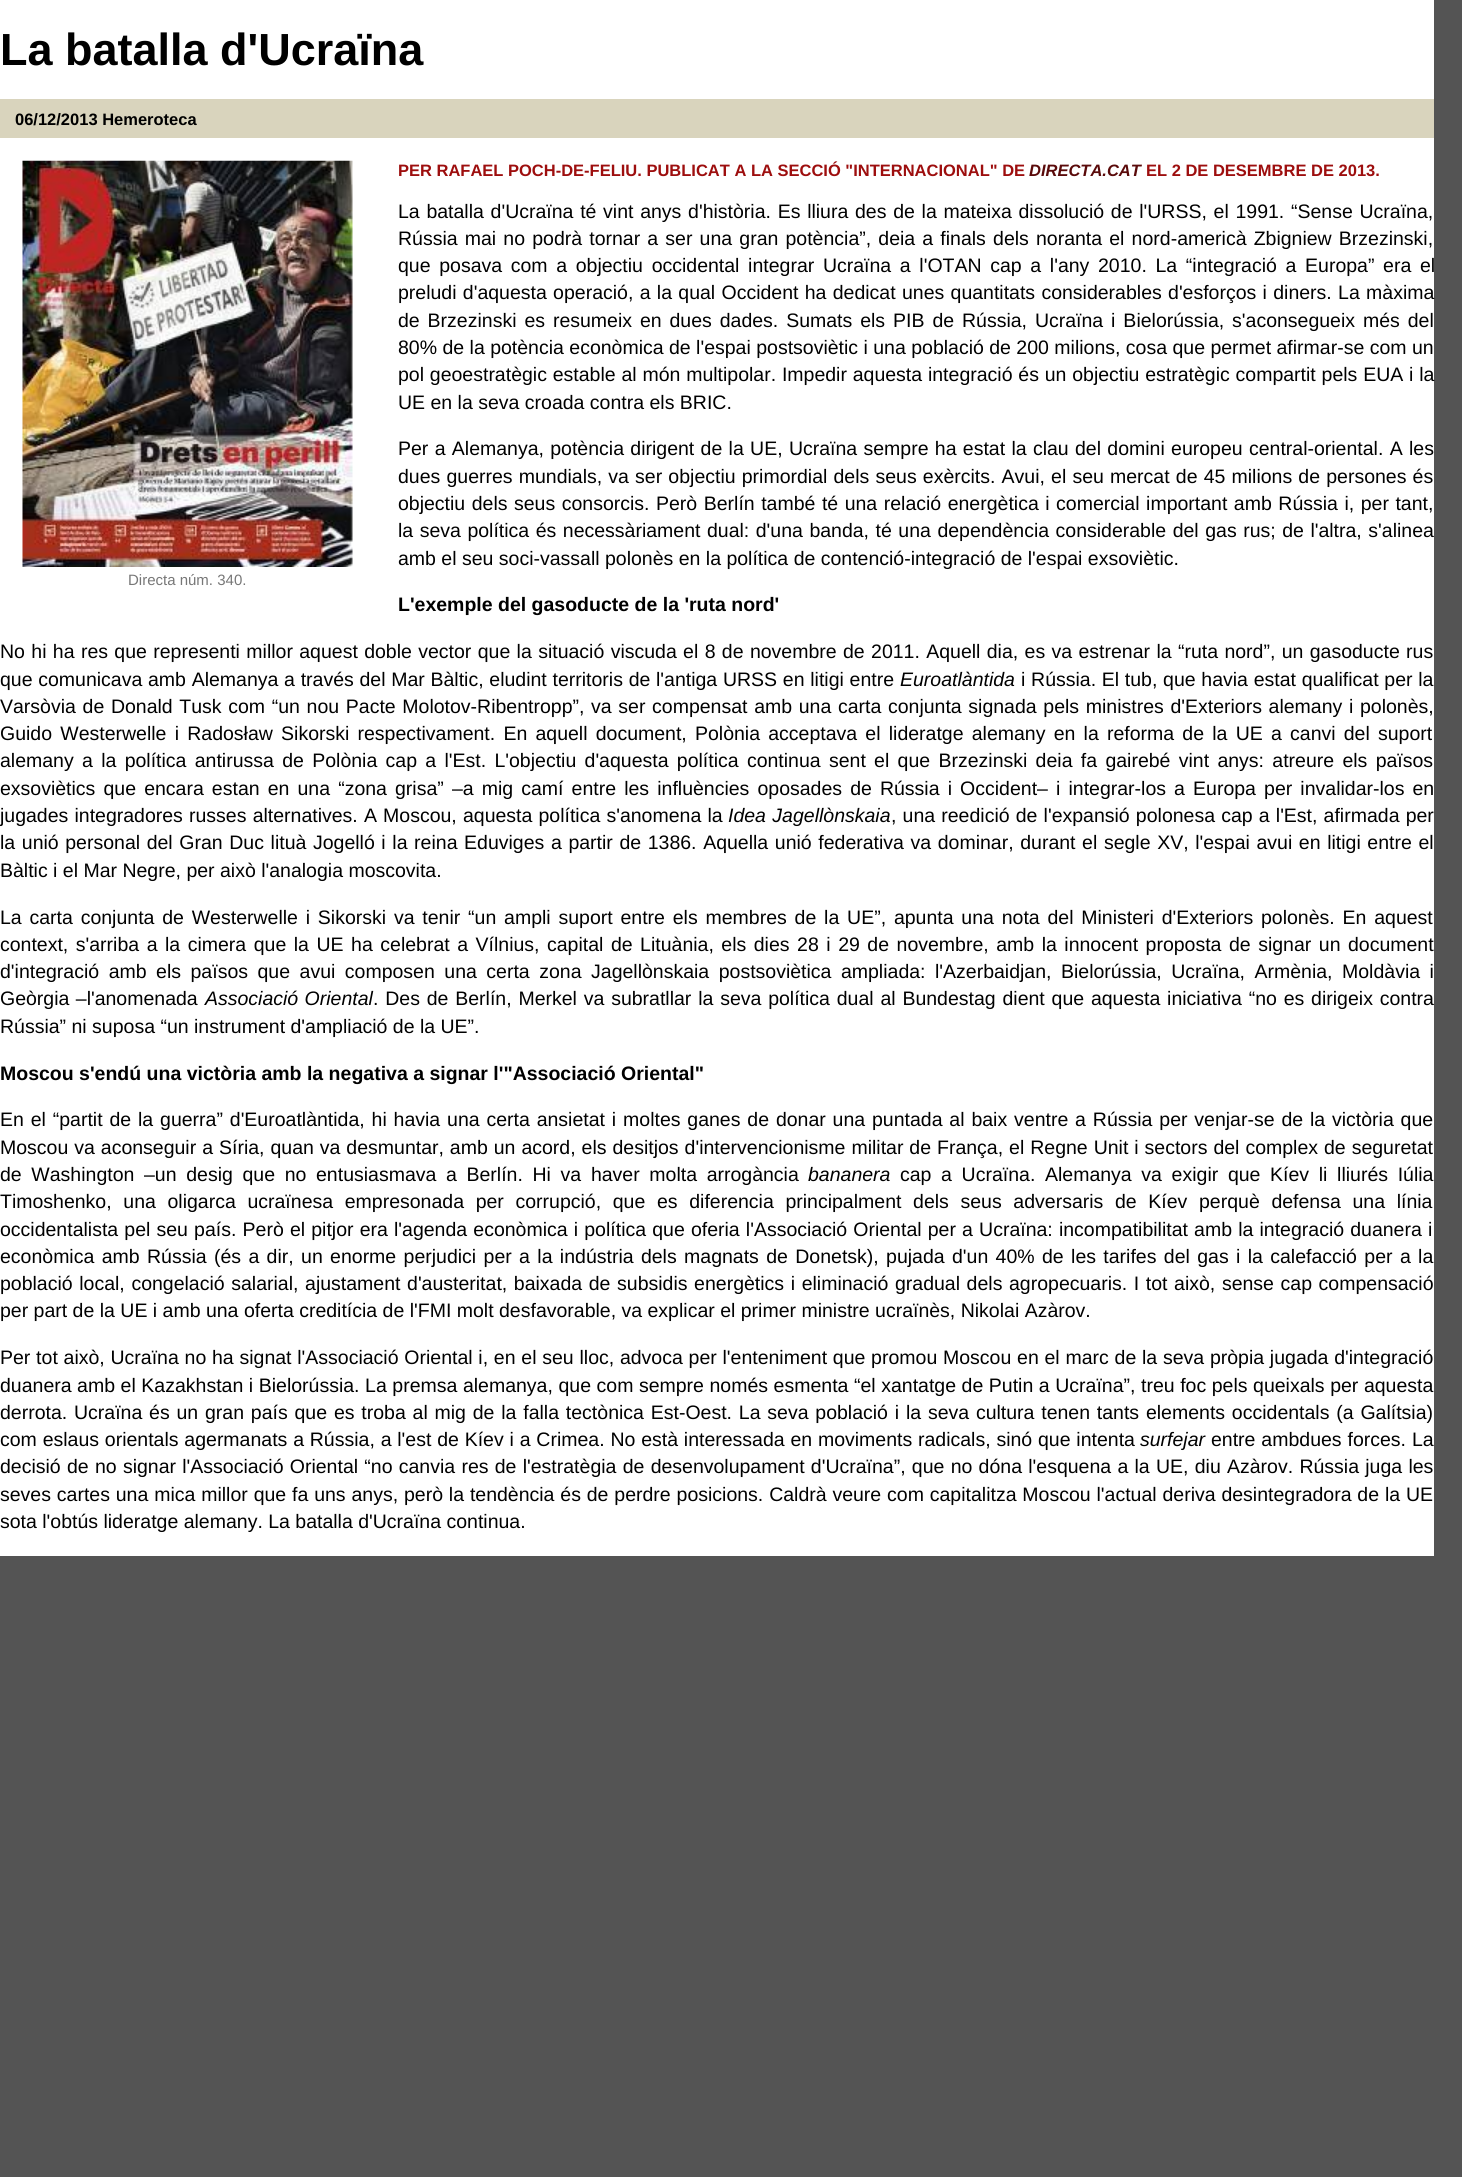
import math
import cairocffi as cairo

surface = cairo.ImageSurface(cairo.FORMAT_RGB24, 1462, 2177)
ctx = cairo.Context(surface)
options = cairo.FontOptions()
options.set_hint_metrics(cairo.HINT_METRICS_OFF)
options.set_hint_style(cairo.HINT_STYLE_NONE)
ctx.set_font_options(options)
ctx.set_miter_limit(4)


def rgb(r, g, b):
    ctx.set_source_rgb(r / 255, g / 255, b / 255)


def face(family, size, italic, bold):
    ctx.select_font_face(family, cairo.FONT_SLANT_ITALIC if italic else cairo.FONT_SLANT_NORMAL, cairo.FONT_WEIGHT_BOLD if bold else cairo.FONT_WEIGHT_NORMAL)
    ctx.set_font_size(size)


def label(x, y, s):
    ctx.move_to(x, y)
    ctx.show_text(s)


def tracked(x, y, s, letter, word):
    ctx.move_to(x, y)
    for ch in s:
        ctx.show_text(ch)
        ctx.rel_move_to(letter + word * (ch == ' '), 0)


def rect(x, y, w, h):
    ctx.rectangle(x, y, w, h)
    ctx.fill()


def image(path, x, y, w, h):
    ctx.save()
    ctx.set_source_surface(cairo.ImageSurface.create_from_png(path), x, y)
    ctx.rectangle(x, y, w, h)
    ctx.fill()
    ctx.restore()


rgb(84, 84, 84)
ctx.paint()
rgb(255, 255, 255)
rect(0, 0, 1434, 1556)
face('Liberation Sans', 45, 0, 1)
rgb(0, 0, 0)
label(0, 65, 'La batalla d\'Ucraïna')
rgb(217, 212, 189)
rect(0, 99, 1434, 39)
face('Liberation Sans', 16.5, 0, 1)
rgb(0, 0, 0)
label(15, 125, '06/12/2013 Hemeroteca')
rgb(157, 14, 14)
label(398, 176, 'PER RAFAEL POCH-DE-FELIU. PUBLICAT A LA SECCIÓ "INTERNACIONAL" DE')
face('Liberation Sans', 16.5, 1, 1)
rgb(90, 10, 10)
label(1029, 176, 'DIRECTA.CAT')
face('Liberation Sans', 16.5, 0, 1)
rgb(157, 14, 14)
label(1146, 176, 'EL 2 DE DESEMBRE DE 2013.')
face('Liberation Sans', 19.5, 0, 0)
rgb(0, 0, 0)
tracked(398, 218, 'La batalla d\'Ucraïna té vint anys d\'història. Es lliura des de la mateixa dissolució de l\'URSS, el 1991. “Sense Ucraïna,', 0, 1.3)
tracked(398, 245, 'Rússia mai no podrà tornar a ser una gran potència”, deia a finals dels noranta el nord-americà Zbigniew Brzezinski,', 0, 1.75)
tracked(398, 272, 'que posava com a objectiu occidental integrar Ucraïna a l\'OTAN cap a l\'any 2010. La “integració a Europa” era el', 0, 3.25)
tracked(398, 299, 'preludi d\'aquesta operació, a la qual Occident ha dedicat unes quantitats considerables d\'esforços i diners. La màxima', 0, 0.9)
tracked(398, 327, 'de Brzezinski es resumeix en dues dades. Sumats els PIB de Rússia, Ucraïna i Bielorússia, s\'aconsegueix més del', 0, 2.5)
label(398, 354, '80% de la potència econòmica de l\'espai postsoviètic i una població de 200 milions, cosa que permet afirmar-se com un')
tracked(398, 381, 'pol geoestratègic estable al món multipolar. Impedir aquesta integració és un objectiu estratègic compartit pels EUA i la', 0, 0.4)
label(398, 409, 'UE en la seva croada contra els BRIC.')
tracked(398, 455, 'Per a Alemanya, potència dirigent de la UE, Ucraïna sempre ha estat la clau del domini europeu central-oriental. A les', 0, 0.9)
tracked(398, 483, 'dues guerres mundials, va ser objectiu primordial dels seus exèrcits. Avui, el seu mercat de 45 milions de persones és', 0, 0.75)
tracked(398, 510, 'objectiu dels seus consorcis. Però Berlín també té una relació energètica i comercial important amb Rússia i, per tant,', 0, 1.1)
tracked(398, 537, 'la seva política és necessàriament dual: d\'una banda, té una dependència considerable del gas rus; de l\'altra, s\'alinea', 0, 1.1)
label(398, 565, 'amb el seu soci-vassall polonès en la política de contenció-integració de l\'espai exsoviètic.')
face('Liberation Sans', 19.5, 0, 1)
label(398, 611, 'L\'exemple del gasoducte de la \'ruta nord\'')
face('Liberation Sans', 19.5, 0, 0)
tracked(0, 658, 'No hi ha res que representi millor aquest doble vector que la situació viscuda el 8 de novembre de 2011. Aquell dia, es va estrenar la “ruta nord”, un gasoducte rus', 0, 0.95)
tracked(0, 686, 'que comunicava amb Alemanya a través del Mar Bàltic, eludint territoris de l\'antiga URSS en litigi entre', 0, 0.3)
face('Liberation Sans', 19.5, 1, 0)
label(900, 686, 'Euroatlàntida')
face('Liberation Sans', 19.5, 0, 0)
tracked(1021, 686, 'i Rússia. El tub, que havia estat qualificat per la', 0, 0.3)
tracked(0, 713, 'Varsòvia de Donald Tusk com “un nou Pacte Molotov-Ribentropp”, va ser compensat amb una carta conjunta signada pels ministres d\'Exteriors alemany i polonès,', 0, 1.25)
tracked(0, 740, 'Guido Westerwelle i Radosław Sikorski respectivament. En aquell document, Polònia acceptava el lideratge alemany en la reforma de la UE a canvi del suport', 0, 2.8)
tracked(0, 767, 'alemany a la política antirussa de Polònia cap a l\'Est. L\'objectiu d\'aquesta política continua sent el que Brzezinski deia fa gairebé vint anys: atreure els països', 0, 2.9)
tracked(0, 795, 'exsoviètics que encara estan en una “zona grisa” –a mig camí entre les influències oposades de Rússia i Occident– i integrar-los a Europa per invalidar-los en', 0, 2.7)
tracked(0, 822, 'jugades integradores russes alternatives. A Moscou, aquesta política s\'anomena la', 0, 0.75)
face('Liberation Sans', 19.5, 1, 0)
tracked(728, 822, 'Idea Jagellònskaia', 0, 1)
face('Liberation Sans', 19.5, 0, 0)
tracked(891, 822, ', una reedició de l\'expansió polonesa cap a l\'Est, afirmada per', 0, 0.75)
tracked(0, 849, 'la unió personal del Gran Duc lituà Jogelló i la reina Eduviges a partir de 1386. Aquella unió federativa va dominar, durant el segle XV, l\'espai avui en litigi entre el', 0, 1.2)
label(0, 877, 'Bàltic i el Mar Negre, per això l\'analogia moscovita.')
tracked(0, 924, 'La carta conjunta de Westerwelle i Sikorski va tenir “un ampli suport entre els membres de la UE”, apunta una nota del Ministeri d\'Exteriors polonès. En aquest', 0, 2.4)
tracked(0, 951, 'context, s\'arriba a la cimera que la UE ha celebrat a Vílnius, capital de Lituània, els dies 28 i 29 de novembre, amb la innocent proposta de signar un document', 0, 2.1)
tracked(0, 978, 'd\'integració amb els països que avui composen una certa zona Jagellònskaia postsoviètica ampliada: l\'Azerbaidjan, Bielorússia, Ucraïna, Armènia, Moldàvia i', 0, 4.1)
tracked(0, 1005, 'Geòrgia –l\'anomenada', 0, 1)
face('Liberation Sans', 19.5, 1, 0)
tracked(205, 1005, 'Associació Oriental', 0, 1)
face('Liberation Sans', 19.5, 0, 0)
tracked(373, 1005, '. Des de Berlín, Merkel va subratllar la seva política dual al Bundestag dient que aquesta iniciativa “no es dirigeix contra', 0, 1.4)
label(0, 1033, 'Rússia” ni suposa “un instrument d\'ampliació de la UE”.')
face('Liberation Sans', 19.5, 0, 1)
label(0, 1080, 'Moscou s\'endú una victòria amb la negativa a signar l\'"Associació Oriental"')
face('Liberation Sans', 19.5, 0, 0)
tracked(0, 1126, 'En el “partit de la guerra” d\'Euroatlàntida, hi havia una certa ansietat i moltes ganes de donar una puntada al baix ventre a Rússia per venjar-se de la victòria que', 0, 1.45)
tracked(0, 1154, 'Moscou va aconseguir a Síria, quan va desmuntar, amb un acord, els desitjos d\'intervencionisme militar de França, el Regne Unit i sectors del complex de seguretat', 0, 0.55)
tracked(0, 1181, 'de Washington –un desig que no entusiasmava a Berlín. Hi va haver molta arrogància', 0, 4.25)
face('Liberation Sans', 19.5, 1, 0)
label(808, 1181, 'bananera')
face('Liberation Sans', 19.5, 0, 0)
tracked(900, 1181, 'cap a Ucraïna. Alemanya va exigir que Kíev li lliurés Iúlia', 0, 4.25)
tracked(0, 1208, 'Timoshenko, una oligarca ucraïnesa empresonada per corrupció, que es diferencia principalment dels seus adversaris de Kíev perquè defensa una línia', 0, 6.25)
tracked(0, 1236, 'occidentalista pel seu país. Però el pitjor era l\'agenda econòmica i política que oferia l\'Associació Oriental per a Ucraïna: incompatibilitat amb la integració duanera i', 0, 0.75)
tracked(0, 1263, 'econòmica amb Rússia (és a dir, un enorme perjudici per a la indústria dels magnats de Donetsk), pujada d\'un 40% de les tarifes del gas i la calefacció per a la', 0, 1.95)
tracked(0, 1290, 'població local, congelació salarial, ajustament d\'austeritat, baixada de subsidis energètics i eliminació gradual dels agropecuaris. I tot això, sense cap compensació', 0, 1.2)
label(0, 1317, 'per part de la UE i amb una oferta creditícia de l\'FMI molt desfavorable, va explicar el primer ministre ucraïnès, Nikolai Azàrov.')
tracked(0, 1364, 'Per tot això, Ucraïna no ha signat l\'Associació Oriental i, en el seu lloc, advoca per l\'enteniment que promou Moscou en el marc de la seva pròpia jugada d\'integració', 0, 0.35)
tracked(0, 1392, 'duanera amb el Kazakhstan i Bielorússia. La premsa alemanya, que com sempre només esmenta “el xantatge de Putin a Ucraïna”, treu foc pels queixals per aquesta', 0, 0.15)
tracked(0, 1419, 'derrota. Ucraïna és un gran país que es troba al mig de la falla tectònica Est-Oest. La seva població i la seva cultura tenen tants elements occidentals (a Galítsia)', 0, 1.4)
tracked(0, 1446, 'com eslaus orientals agermanats a Rússia, a l\'est de Kíev i a Crimea. No està interessada en moviments radicals, sinó que intenta', 0, 0.4)
face('Liberation Sans', 19.5, 1, 0)
label(1140, 1446, 'surfejar')
face('Liberation Sans', 19.5, 0, 0)
tracked(1211, 1446, 'entre ambdues forces. La', 0, 0.5)
tracked(0, 1473, 'decisió de no signar l\'Associació Oriental “no canvia res de l\'estratègia de desenvolupament d\'Ucraïna”, que no dóna l\'esquena a la UE, diu Azàrov. Rússia juga les', 0, 0.85)
tracked(0, 1501, 'seves cartes una mica millor que fa uns anys, però la tendència és de perdre posicions. Caldrà veure com capitalitza Moscou l\'actual deriva desintegradora de la UE', 0, 0.45)
label(0, 1528, 'sota l\'obtús lideratge alemany. La batalla d\'Ucraïna continua.')
image('image0.png', 22, 160, 331, 407)
face('Liberation Sans', 15, 0, 0)
rgb(119, 119, 119)
label(128, 585, 'Directa núm. 340.')
surface.write_to_png('render.png')
